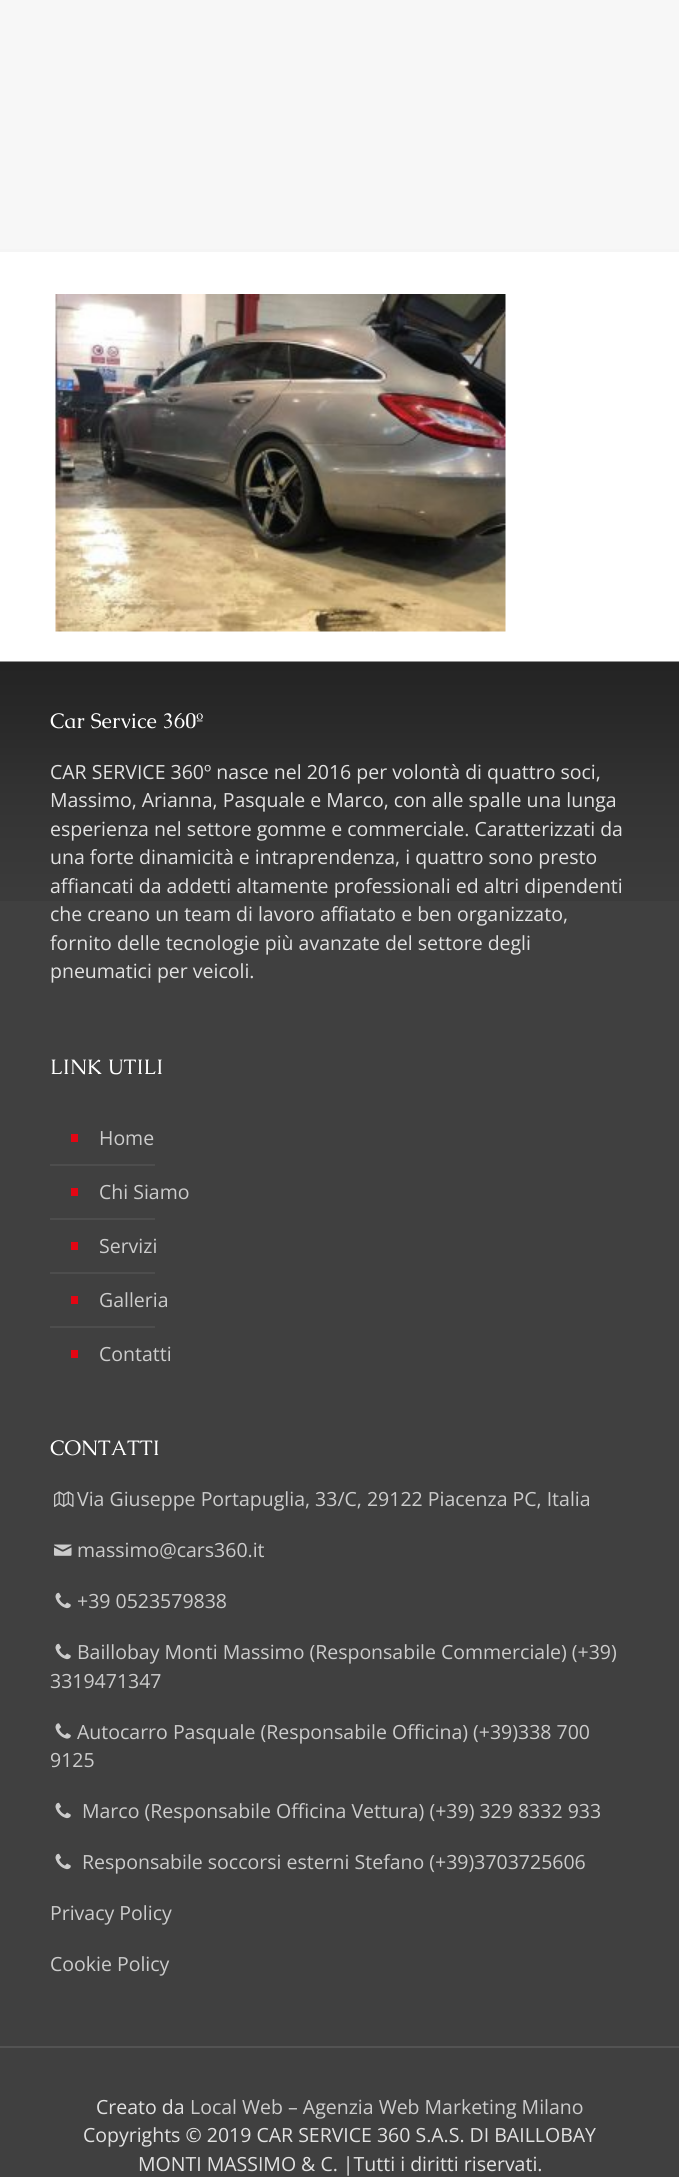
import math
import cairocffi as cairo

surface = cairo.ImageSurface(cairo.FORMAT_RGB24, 679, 2177)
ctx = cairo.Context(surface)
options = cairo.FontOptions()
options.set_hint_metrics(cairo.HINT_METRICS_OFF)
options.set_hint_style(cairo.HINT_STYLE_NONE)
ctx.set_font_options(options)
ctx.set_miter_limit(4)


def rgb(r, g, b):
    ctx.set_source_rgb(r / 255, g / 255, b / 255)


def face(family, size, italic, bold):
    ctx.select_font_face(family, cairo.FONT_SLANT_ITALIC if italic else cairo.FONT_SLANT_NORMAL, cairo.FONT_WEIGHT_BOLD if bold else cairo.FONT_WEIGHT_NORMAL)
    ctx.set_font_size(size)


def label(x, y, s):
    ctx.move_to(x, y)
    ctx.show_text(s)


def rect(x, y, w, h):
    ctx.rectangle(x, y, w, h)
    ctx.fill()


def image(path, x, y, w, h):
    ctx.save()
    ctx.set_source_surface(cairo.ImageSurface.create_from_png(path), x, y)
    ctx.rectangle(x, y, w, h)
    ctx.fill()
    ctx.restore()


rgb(255, 255, 255)
ctx.paint()
rgb(247, 247, 247)
rect(0, 0, 679, 249)
rgb(245, 245, 245)
rect(0, 249, 679, 3)
image('image0.png', 55, 294, 451, 338)
rgb(64, 64, 64)
rect(0, 901, 679, 1276)
image('image1.png', 0, 661, 679, 240)
face('Caudex', 21, 0, 0)
rgb(255, 255, 255)
label(50, 728, 'Car Service 360º')
face('Open Sans', 19.5, 0, 0)
rgb(226, 226, 226)
label(50, 779, 'CAR SERVICE 360º nasce nel 2016 per volontà di quattro soci,')
label(50, 807, 'Massimo, Arianna, Pasquale e Marco, con alle spalle una lunga')
label(50, 836, 'esperienza nel settore gomme e commerciale. Caratterizzati da')
label(50, 864, 'una forte dinamicità e intraprendenza, i quattro sono presto')
label(50, 893, 'affiancati da addetti altamente professionali ed altri dipendenti')
label(50, 921, 'che creano un team di lavoro affiatato e ben organizzato,')
label(50, 950, 'fornito delle tecnologie più avanzate del settore degli')
label(50, 978, 'pneumatici per veicoli.')
face('Caudex', 21, 0, 0)
rgb(255, 255, 255)
label(50, 1074, 'LINK UTILI')
rgb(227, 6, 19)
rect(71, 1134, 7, 8)
face('Open Sans', 19.5, 0, 0)
rgb(204, 204, 204)
label(99, 1145, 'Home')
rgb(77, 77, 77)
rect(50, 1164, 105, 2)
rgb(227, 6, 19)
rect(71, 1188, 7, 8)
rgb(204, 204, 204)
label(99, 1199, 'Chi Siamo')
rgb(77, 77, 77)
rect(50, 1218, 105, 2)
rgb(227, 6, 19)
rect(71, 1242, 7, 8)
rgb(204, 204, 204)
label(99, 1253, 'Servizi')
rgb(77, 77, 77)
rect(50, 1272, 105, 2)
rgb(227, 6, 19)
rect(71, 1296, 7, 8)
rgb(204, 204, 204)
label(99, 1307, 'Galleria')
rgb(77, 77, 77)
rect(50, 1326, 105, 2)
rgb(227, 6, 19)
rect(71, 1350, 7, 8)
rgb(204, 204, 204)
label(99, 1361, 'Contatti')
face('Caudex', 21, 0, 0)
rgb(255, 255, 255)
label(50, 1455, 'CONTATTI')
image('image2.png', 54, 1491, 20, 16)
face('Open Sans', 19.5, 0, 0)
rgb(204, 204, 204)
label(77, 1506, 'Via Giuseppe Portapuglia, 33/C, 29122 Piacenza PC, Italia')
image('image3.png', 54, 1544, 18, 12)
label(77, 1557, 'massimo@cars360.it')
image('image4.png', 55, 1592, 16, 17)
label(77, 1608, '+39 0523579838')
image('image4.png', 55, 1643, 16, 17)
label(77, 1659, 'Baillobay Monti Massimo (Responsabile Commerciale) (+39)')
label(50, 1688, '3319471347')
image('image5.png', 55, 1723, 16, 16)
label(77, 1739, 'Autocarro Pasquale (Responsabile Officina) (+39)338 700')
label(50, 1767, '9125')
image('image4.png', 55, 1802, 16, 17)
label(82, 1818, 'Marco (Responsabile Officina Vettura) (+39) 329 8332 933')
image('image4.png', 55, 1853, 16, 17)
label(82, 1869, 'Responsabile soccorsi esterni Stefano (+39)3703725606')
label(50, 1920, 'Privacy Policy')
label(50, 1971, 'Cookie Policy')
rgb(83, 83, 83)
rect(0, 2046, 679, 2)
rgb(226, 226, 226)
label(96, 2114, 'Creato da')
rgb(204, 204, 204)
label(190, 2114, 'Local Web – Agenzia Web Marketing Milano')
rgb(226, 226, 226)
label(83, 2142, 'Copyrights © 2019 CAR SERVICE 360 S.A.S. DI BAILLOBAY')
label(138, 2171, 'MONTI MASSIMO & C. |Tutti i diritti riservati.')
surface.write_to_png('render.png')
